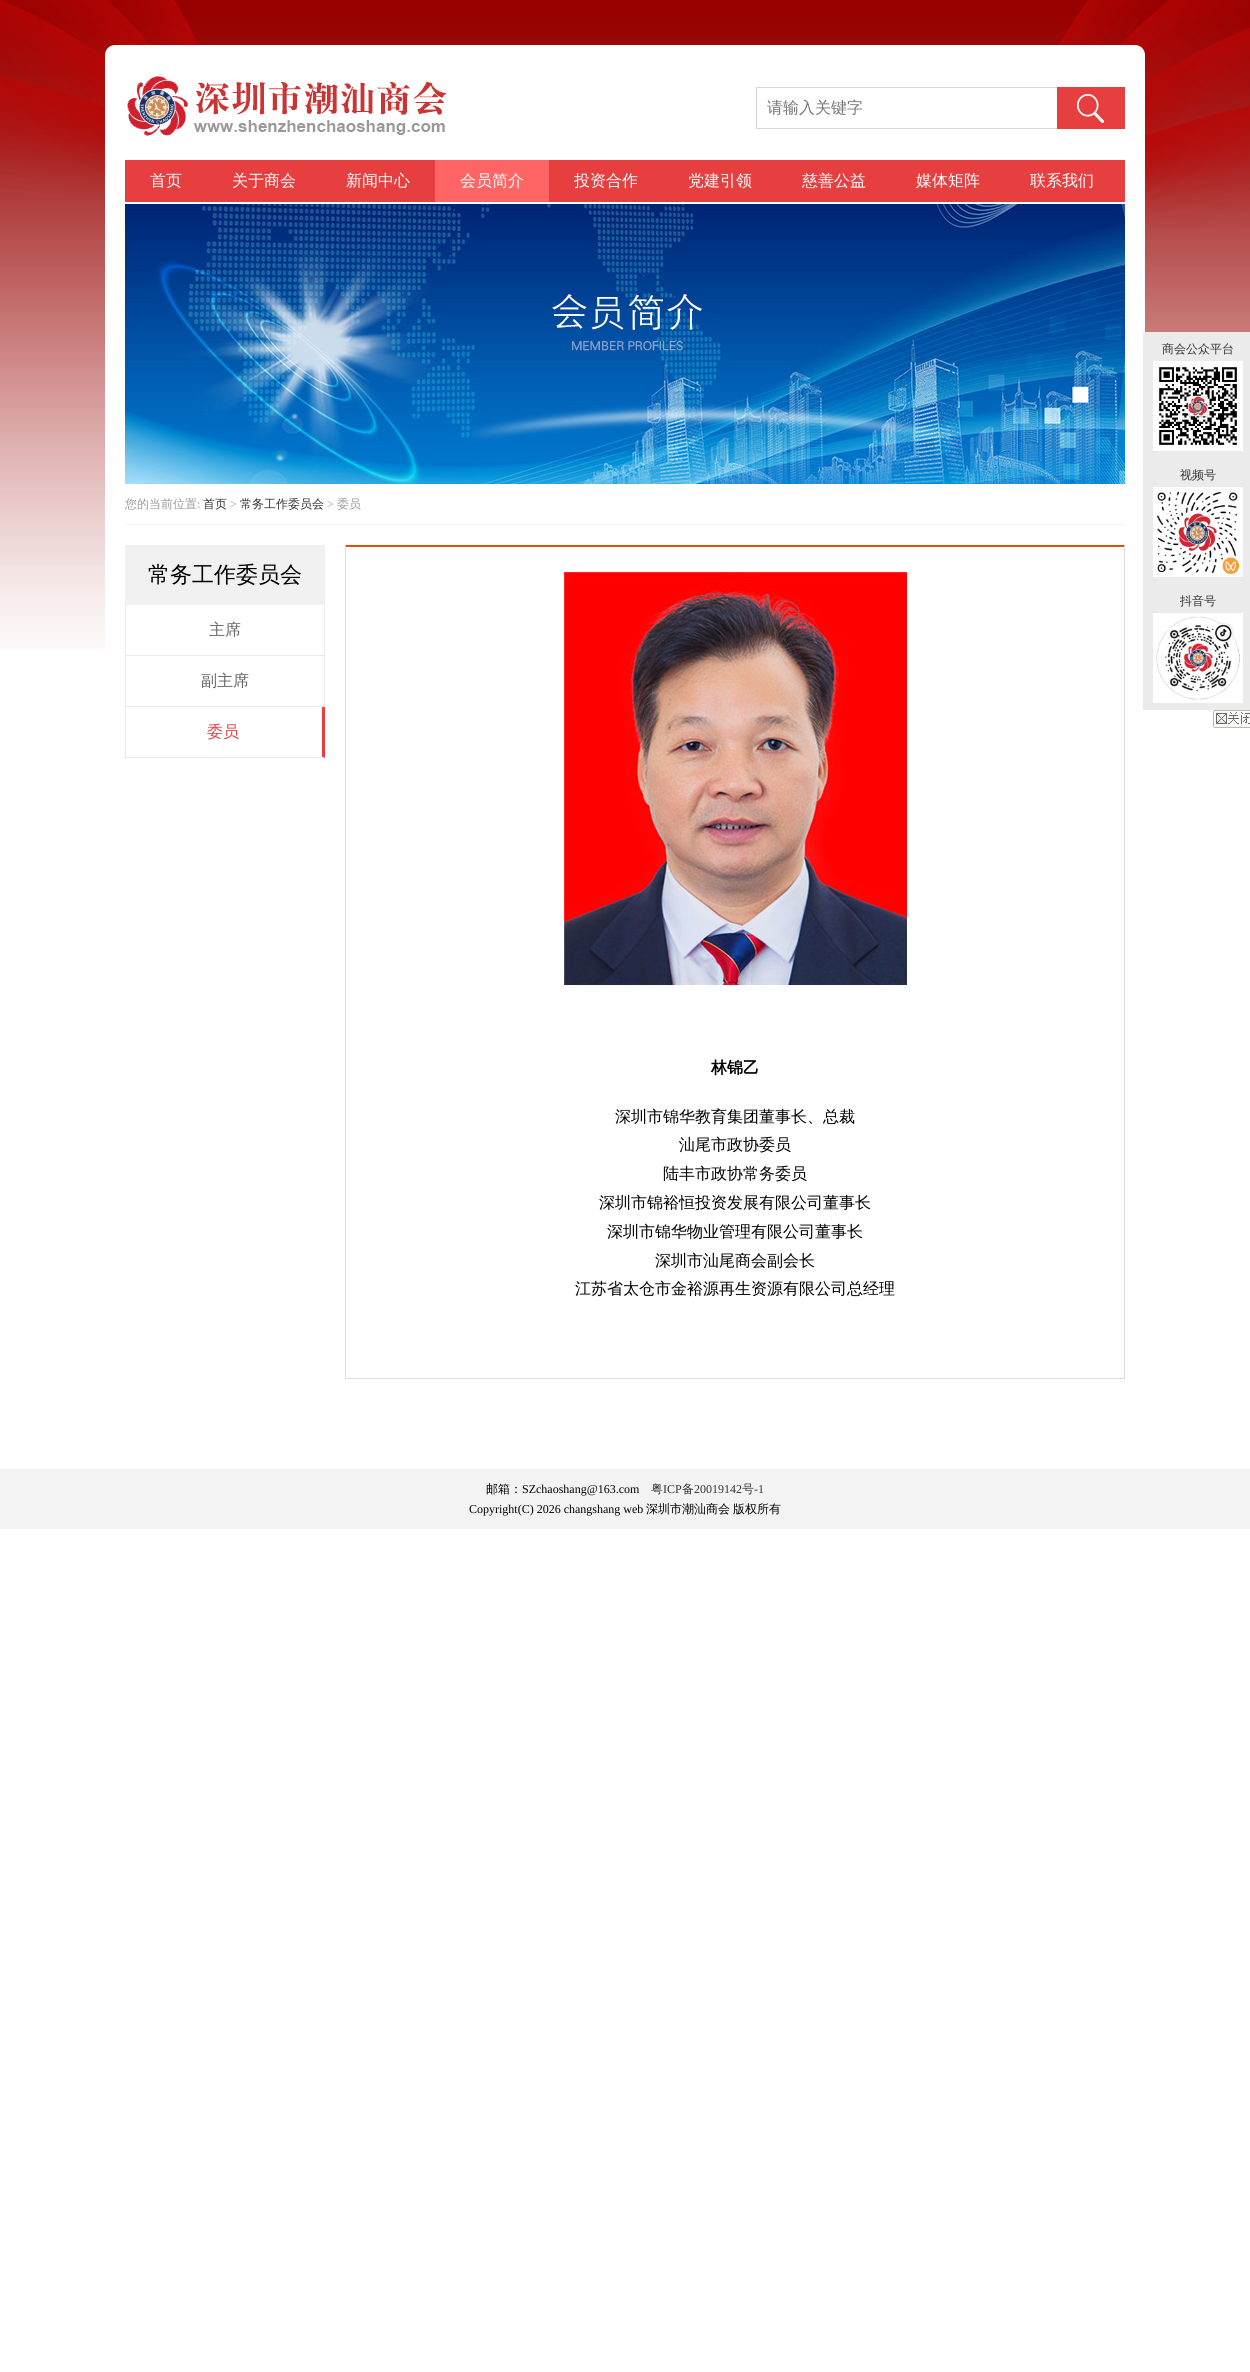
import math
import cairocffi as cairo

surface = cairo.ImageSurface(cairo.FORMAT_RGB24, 1250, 2372)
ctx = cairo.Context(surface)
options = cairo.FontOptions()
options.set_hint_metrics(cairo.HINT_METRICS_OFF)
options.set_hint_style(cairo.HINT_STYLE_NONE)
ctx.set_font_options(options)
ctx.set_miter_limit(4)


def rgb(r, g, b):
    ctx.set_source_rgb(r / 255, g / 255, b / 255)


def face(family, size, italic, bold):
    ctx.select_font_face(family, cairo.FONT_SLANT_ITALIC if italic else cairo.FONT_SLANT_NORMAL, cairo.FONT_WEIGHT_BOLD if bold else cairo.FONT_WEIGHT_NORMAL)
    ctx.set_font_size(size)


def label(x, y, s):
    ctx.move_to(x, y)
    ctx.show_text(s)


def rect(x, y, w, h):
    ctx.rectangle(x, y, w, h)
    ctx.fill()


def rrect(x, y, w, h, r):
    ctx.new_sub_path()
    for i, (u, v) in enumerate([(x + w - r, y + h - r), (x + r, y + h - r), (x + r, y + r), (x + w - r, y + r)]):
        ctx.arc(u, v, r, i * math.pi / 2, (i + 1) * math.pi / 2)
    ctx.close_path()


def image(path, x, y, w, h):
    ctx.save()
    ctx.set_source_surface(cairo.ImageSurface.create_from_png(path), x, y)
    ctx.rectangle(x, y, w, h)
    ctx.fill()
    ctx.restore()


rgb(255, 255, 255)
ctx.paint()
image('image0.png', 0, 0, 1250, 649)
rgb(255, 255, 255)
rrect(105, 45, 1040, 1374, 10)
ctx.fill()
image('image1.png', 127, 76, 320, 60)
rgb(215, 215, 215)
rect(756, 87, 301, 1)
rect(756, 128, 301, 1)
rect(756, 87, 1, 42)
face('WenQuanYi Zen Hei Medium', 16, 0, 0)
rgb(117, 117, 117)
label(767, 113, '请输入关键字')
rgb(231, 63, 63)
rect(1057, 87, 68, 42)
image('image2.png', 1077, 94, 27, 29)
rect(125, 160, 1000, 42)
rgb(255, 255, 255)
label(150, 186, '首页')
label(232, 186, '关于商会')
label(346, 186, '新闻中心')
rgb(255, 101, 101)
rect(435, 160, 114, 42)
rgb(255, 255, 255)
label(460, 186, '会员简介')
label(574, 186, '投资合作')
label(688, 186, '党建引领')
label(802, 186, '慈善公益')
label(916, 186, '媒体矩阵')
label(1030, 186, '联系我们')
image('image3.png', 125, 204, 1000, 280)
rgb(243, 243, 243)
rect(125, 524, 1000, 1)
face('WenQuanYi Zen Hei Medium', 12, 0, 0)
rgb(153, 153, 153)
label(125, 508, '您的当前位置')
face('Liberation Serif', 12, 0, 0)
label(197, 508, ':')
face('WenQuanYi Zen Hei Medium', 12, 0, 0)
rgb(51, 51, 51)
label(203, 508, '首页')
face('Liberation Serif', 12, 0, 0)
rgb(153, 153, 153)
label(230, 508, '>')
face('WenQuanYi Zen Hei Medium', 12, 0, 0)
rgb(51, 51, 51)
label(240, 508, '常务工作委员会')
face('Liberation Serif', 12, 0, 0)
rgb(153, 153, 153)
label(327, 508, '>')
face('WenQuanYi Zen Hei Medium', 12, 0, 0)
label(337, 508, '委员')
rgb(241, 241, 241)
rect(125, 545, 200, 60)
face('WenQuanYi Zen Hei Medium', 22, 0, 0)
rgb(0, 0, 0)
label(148, 582, '常务工作委员会')
rgb(234, 234, 234)
rect(324, 605, 1, 153)
rect(125, 605, 1, 153)
rect(126, 655, 198, 1)
face('WenQuanYi Zen Hei Medium', 16, 0, 0)
rgb(102, 102, 102)
label(209, 635, '主席')
rgb(234, 234, 234)
rect(126, 706, 198, 1)
rgb(102, 102, 102)
label(201, 686, '副主席')
rgb(231, 63, 63)
ctx.new_path()
ctx.move_to(325, 707)
ctx.line_to(325, 758)
ctx.line_to(322, 757)
ctx.line_to(322, 707)
ctx.close_path()
ctx.fill()
rgb(234, 234, 234)
ctx.new_path()
ctx.move_to(325, 758)
ctx.line_to(124, 758)
ctx.line_to(124, 757)
ctx.line_to(322, 757)
ctx.close_path()
ctx.fill()
rgb(231, 63, 63)
label(207, 737, '委员')
rgb(226, 82, 12)
ctx.new_path()
ctx.move_to(345, 545)
ctx.line_to(1125, 545)
ctx.line_to(1124, 547)
ctx.line_to(346, 547)
ctx.close_path()
ctx.fill()
rgb(221, 221, 221)
ctx.new_path()
ctx.move_to(1125, 545)
ctx.line_to(1125, 1379)
ctx.line_to(1124, 1378)
ctx.line_to(1124, 547)
ctx.close_path()
ctx.fill()
rect(345, 1378, 780, 1)
ctx.new_path()
ctx.move_to(345, 1379)
ctx.line_to(345, 545)
ctx.line_to(346, 547)
ctx.line_to(346, 1378)
ctx.close_path()
ctx.fill()
image('image4.png', 564, 572, 343, 413)
face('WenQuanYi Zen Hei', 16, 0, 1)
rgb(0, 0, 0)
label(711, 1073, '林锦乙')
face('WenQuanYi Zen Hei Medium', 16, 0, 0)
label(615, 1122, '深圳市锦华教育集团董事长、总裁')
label(679, 1150, '汕尾市政协委员')
label(663, 1179, '陆丰市政协常务委员')
label(599, 1208, '深圳市锦裕恒投资发展有限公司董事长')
label(607, 1237, '深圳市锦华物业管理有限公司董事长')
label(655, 1266, '深圳市汕尾商会副会长')
label(575, 1294, '江苏省太仓市金裕源再生资源有限公司总经理')
rgb(235, 235, 235)
rect(1143, 332, 107, 378)
face('WenQuanYi Zen Hei Medium', 12, 0, 0)
rgb(51, 51, 51)
label(1162, 353, '商会公众平台')
image('image5.png', 1153, 361, 90, 90)
label(1180, 479, '视频号')
image('image6.png', 1153, 487, 90, 90)
label(1180, 605, '抖音号')
image('image7.png', 1153, 613, 90, 90)
image('image8.png', 1213, 710, 37, 18)
rgb(243, 243, 243)
rect(0, 1469, 1250, 60)
rgb(0, 0, 0)
label(486, 1493, '邮箱：')
face('Liberation Serif', 12, 0, 0)
label(522, 1493, 'SZchaoshang@163.com')
face('WenQuanYi Zen Hei Medium', 12, 0, 0)
rgb(51, 51, 51)
label(651, 1493, '粤')
face('Liberation Serif', 12, 0, 0)
label(663, 1493, 'ICP')
face('WenQuanYi Zen Hei Medium', 12, 0, 0)
label(682, 1493, '备')
face('Liberation Serif', 12, 0, 0)
label(694, 1493, '20019142')
face('WenQuanYi Zen Hei Medium', 12, 0, 0)
label(742, 1493, '号')
face('Liberation Serif', 12, 0, 0)
label(754, 1493, '-1')
rgb(0, 0, 0)
label(469, 1513, 'Copyright(C) 2026 changshang web')
face('WenQuanYi Zen Hei Medium', 12, 0, 0)
label(646, 1513, '深圳市潮汕商会')
label(733, 1513, '版权所有')
surface.write_to_png('render.png')
